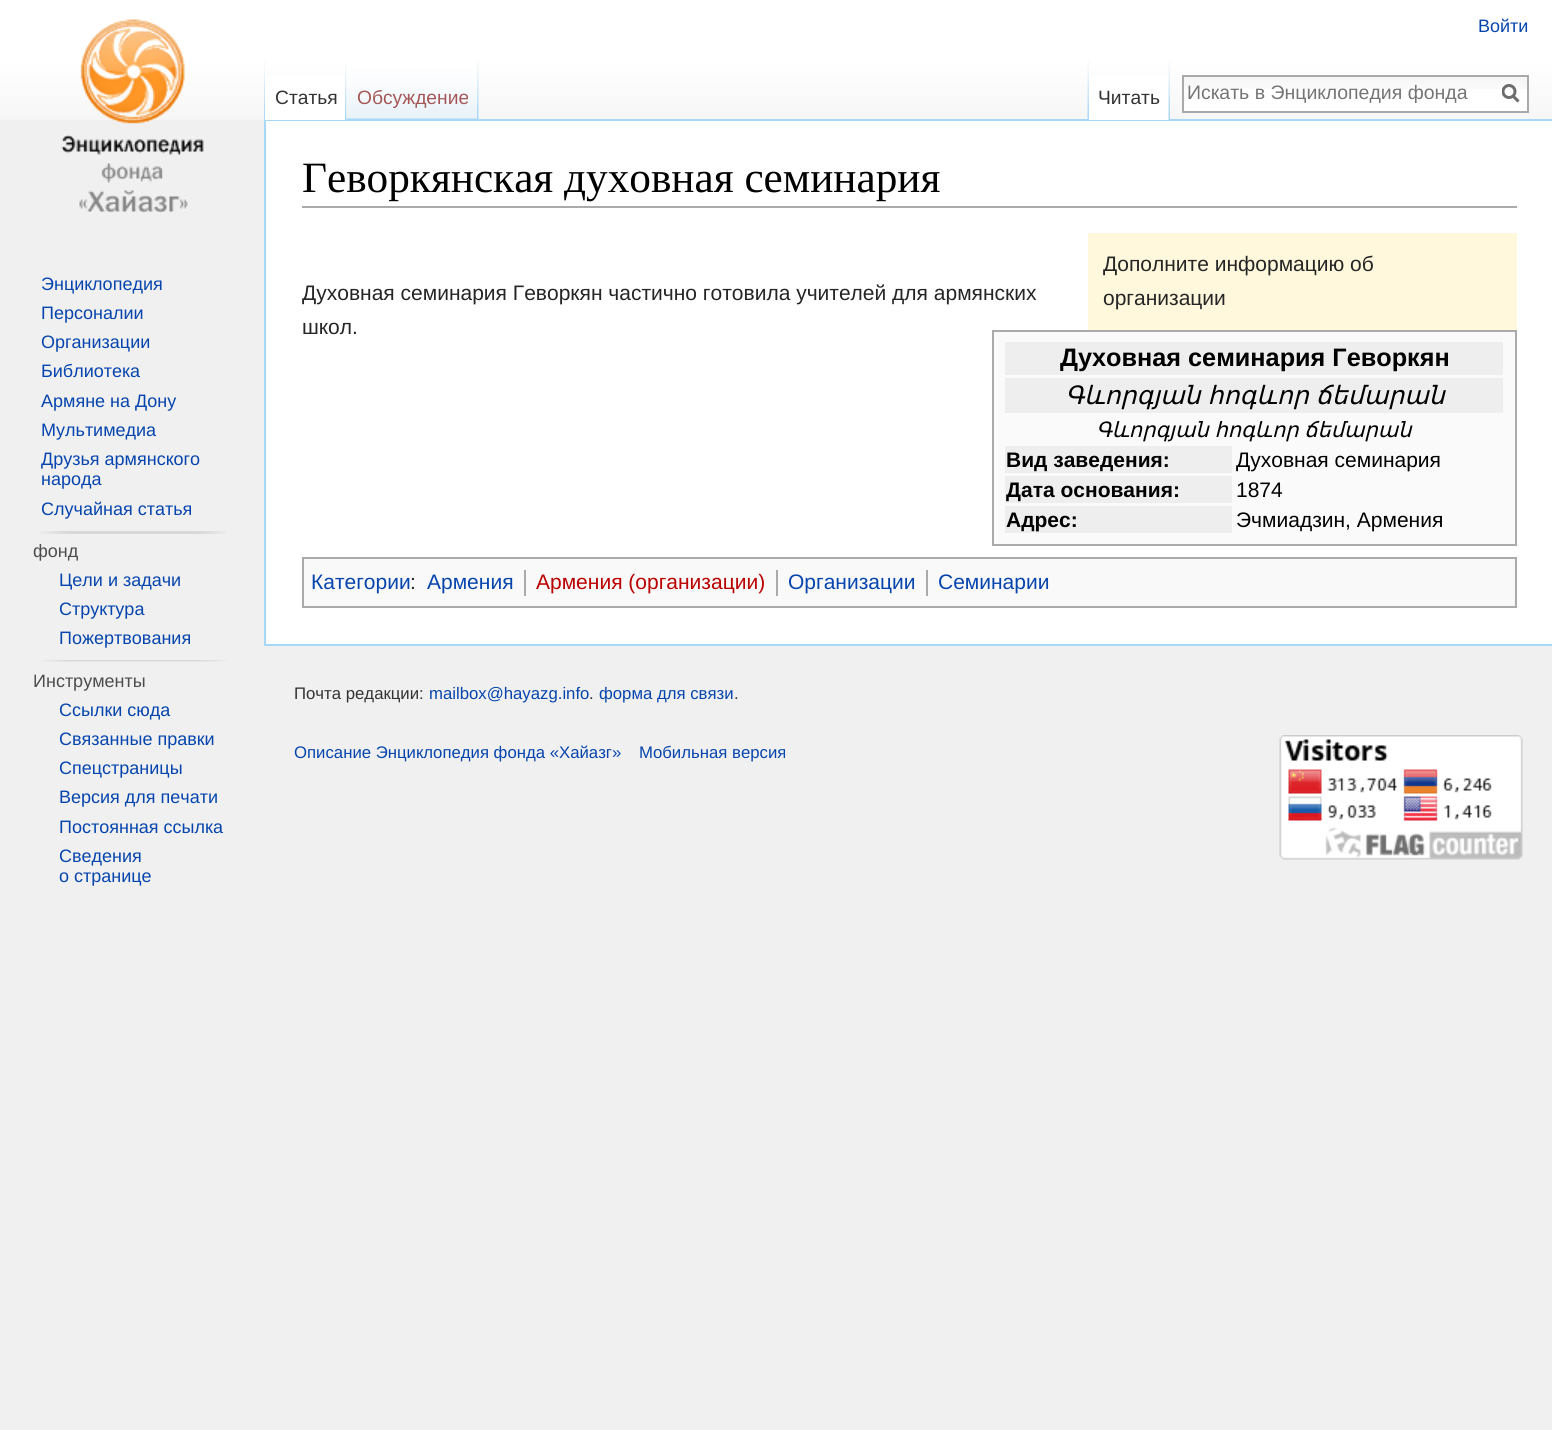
import math
import cairocffi as cairo

surface = cairo.ImageSurface(cairo.FORMAT_RGB24, 1552, 1430)
ctx = cairo.Context(surface)
options = cairo.FontOptions()
options.set_hint_metrics(cairo.HINT_METRICS_OFF)
options.set_hint_style(cairo.HINT_STYLE_NONE)
ctx.set_font_options(options)
ctx.set_miter_limit(4)


def rgb(r, g, b):
    ctx.set_source_rgb(r / 255, g / 255, b / 255)


def face(family, size, italic, bold):
    ctx.select_font_face(family, cairo.FONT_SLANT_ITALIC if italic else cairo.FONT_SLANT_NORMAL, cairo.FONT_WEIGHT_BOLD if bold else cairo.FONT_WEIGHT_NORMAL)
    ctx.set_font_size(size)


def label(x, y, s):
    ctx.move_to(x, y)
    ctx.show_text(s)


def tracked(x, y, s, letter, word):
    ctx.move_to(x, y)
    for ch in s:
        ctx.show_text(ch)
        ctx.rel_move_to(letter + word * (ch == ' '), 0)


def rect(x, y, w, h):
    ctx.rectangle(x, y, w, h)
    ctx.fill()


def image(path, x, y, w, h):
    ctx.save()
    ctx.set_source_surface(cairo.ImageSurface.create_from_png(path), x, y)
    ctx.rectangle(x, y, w, h)
    ctx.fill()
    ctx.restore()


rgb(240, 240, 240)
ctx.paint()
gradient = cairo.LinearGradient(776, 0, 776, 120)
gradient.add_color_stop_rgba(0.5, 1, 1, 1, 1)
gradient.add_color_stop_rgba(1, 0.965, 0.965, 0.965, 1)
ctx.set_source(gradient)
rect(0, 0, 1552, 120)
face('Liberation Sans', 18, 0, 0)
rgb(6, 69, 173)
label(1478, 32, 'Войти')
image('image0.png', 264, 60, 1, 59)
rgb(167, 215, 249)
rect(264, 119, 1288, 2)
rect(264, 644, 1288, 2)
rect(264, 119, 2, 526)
rgb(255, 255, 255)
rect(265, 77, 82, 43)
image('image1.png', 345, 61, 2, 59)
face('Liberation Sans', 19.25, 0, 0)
rgb(51, 51, 51)
label(275, 104, 'Статья')
rgb(243, 243, 243)
rect(478, 60, 1, 60)
image('image2.png', 346, 60, 133, 60)
image('image3.png', 477, 61, 2, 59)
rgb(165, 88, 88)
label(357, 104, 'Обсуждение')
image('image4.png', 1087, 60, 2, 59)
rgb(255, 255, 255)
rect(1089, 77, 81, 43)
image('image5.png', 1168, 61, 2, 59)
rgb(51, 51, 51)
label(1098, 104, 'Читать')
rgb(255, 255, 255)
rect(1184, 89, 343, 22)
image('image6.png', 1184, 77, 343, 12)
ctx.rectangle(1183, 76, 345, 36)
rgb(170, 170, 170)
ctx.stroke()
face('Liberation Sans', 19.5, 0, 0)
rgb(117, 117, 117)
label(1187, 99, 'Искать в Энциклопедия фонда')
ctx.new_path()
ctx.move_to(1518.5, 101.5)
ctx.line_to(1512.5, 95.5)
rgb(108, 108, 108)
ctx.set_line_width(3)
ctx.stroke()
ctx.save()
ctx.rectangle(1502, 84, 18, 20)
ctx.clip()
ctx.arc(1509, 91.5, 6, 0, 2 * math.pi)
ctx.stroke()
ctx.restore()
image('image7.png', 61, 19, 143, 194)
face('Liberation Sans', 18, 0, 0)
rgb(6, 69, 173)
label(41, 290, 'Энциклопедия')
label(41, 319, 'Персоналии')
label(41, 348, 'Организации')
label(41, 377, 'Библиотека')
label(41, 407, 'Армяне на Дону')
label(41, 436, 'Мультимедиа')
label(41, 465, 'Друзья армянского')
label(41, 485, 'народа')
label(41, 515, 'Случайная статья')
image('image8.png', 41, 531, 186, 3)
rgb(77, 77, 77)
label(33, 557, 'фонд')
rgb(6, 69, 173)
label(59, 586, 'Цели и задачи')
label(59, 615, 'Структура')
label(59, 644, 'Пожертвования')
image('image9.png', 41, 660, 186, 2)
rgb(77, 77, 77)
label(33, 687, 'Инструменты')
rgb(6, 69, 173)
label(59, 716, 'Ссылки сюда')
label(59, 745, 'Связанные правки')
label(59, 774, 'Спецстраницы')
label(59, 803, 'Версия для печати')
label(59, 833, 'Постоянная ссылка')
label(59, 862, 'Сведения')
label(59, 882, 'о странице')
rgb(255, 255, 255)
rect(266, 121, 1286, 523)
rgb(170, 170, 170)
rect(302, 206, 1215, 2)
face('Liberation Serif', 43.25, 0, 0)
rgb(0, 0, 0)
label(302, 192, 'Геворкянская духовная семинария')
face('Liberation Sans', 21, 0, 0)
rgb(37, 37, 37)
label(302, 300, 'Духовная семинария Геворкян частично готовила учителей для армянских')
label(302, 334, 'школ.')
rgb(255, 248, 220)
rect(1088, 233, 429, 97)
rgb(37, 37, 37)
label(1103, 271, 'Дополните информацию об')
label(1103, 305, 'организации')
rgb(250, 250, 250)
ctx.rectangle(993, 331, 523, 214)
ctx.fill_preserve()
rgb(170, 170, 170)
ctx.set_line_width(2)
ctx.stroke()
rgb(238, 238, 238)
rect(1005, 342, 498, 33)
face('Liberation Sans', 25.25, 0, 1)
rgb(0, 0, 0)
label(1060, 366, 'Духовная семинария Геворкян')
rgb(238, 238, 238)
rect(1005, 378, 498, 35)
face('DejaVu Sans', 25.25, 1, 0)
rgb(0, 0, 0)
tracked(1065, 404, 'Գևորգյան հոգևոր ճեմարան', 0, -1)
face('DejaVu Sans', 21, 1, 0)
tracked(1096, 437, 'Գևորգյան հոգևոր ճեմարան', 0, -1)
rgb(238, 238, 238)
rect(1005, 446, 227, 27)
face('Liberation Sans', 21, 0, 1)
rgb(0, 0, 0)
label(1006, 467, 'Вид заведения:')
face('Liberation Sans', 21, 0, 0)
label(1236, 467, 'Духовная семинария')
rgb(238, 238, 238)
rect(1005, 476, 227, 27)
face('Liberation Sans', 21, 0, 1)
rgb(0, 0, 0)
label(1006, 497, 'Дата основания:')
face('Liberation Sans', 21, 0, 0)
label(1236, 497, '1874')
rgb(238, 238, 238)
rect(1005, 506, 227, 27)
face('Liberation Sans', 21, 0, 1)
rgb(0, 0, 0)
label(1006, 527, 'Адрес:')
face('Liberation Sans', 21, 0, 0)
label(1236, 527, 'Эчмиадзин, Армения')
rgb(249, 249, 249)
ctx.rectangle(303, 558, 1213, 49)
ctx.fill_preserve()
rgb(170, 170, 170)
ctx.stroke()
rgb(6, 69, 173)
label(311, 589, 'Категории')
rgb(37, 37, 37)
label(410, 589, ':')
rgb(6, 69, 173)
label(427, 589, 'Армения')
rgb(170, 170, 170)
rect(524, 570, 2, 26)
rgb(186, 0, 0)
label(536, 589, 'Армения (организации)')
rgb(170, 170, 170)
rect(776, 570, 2, 26)
rgb(6, 69, 173)
label(788, 589, 'Организации')
rgb(170, 170, 170)
rect(926, 570, 2, 26)
rgb(6, 69, 173)
label(938, 589, 'Семинарии')
face('Liberation Sans', 16.75, 0, 0)
rgb(51, 51, 51)
label(294, 699, 'Почта редакции:')
rgb(6, 69, 173)
label(429, 699, 'mailbox@hayazg.info')
rgb(51, 51, 51)
label(589, 699, '.')
rgb(6, 69, 173)
label(599, 699, 'форма для связи')
rgb(51, 51, 51)
label(734, 699, '.')
rgb(6, 69, 173)
label(294, 758, 'Описание Энциклопедия фонда «Хайазг»')
label(639, 758, 'Мобильная версия')
image('image10.png', 1279, 735, 244, 125)
surface.write_to_png('render.png')
